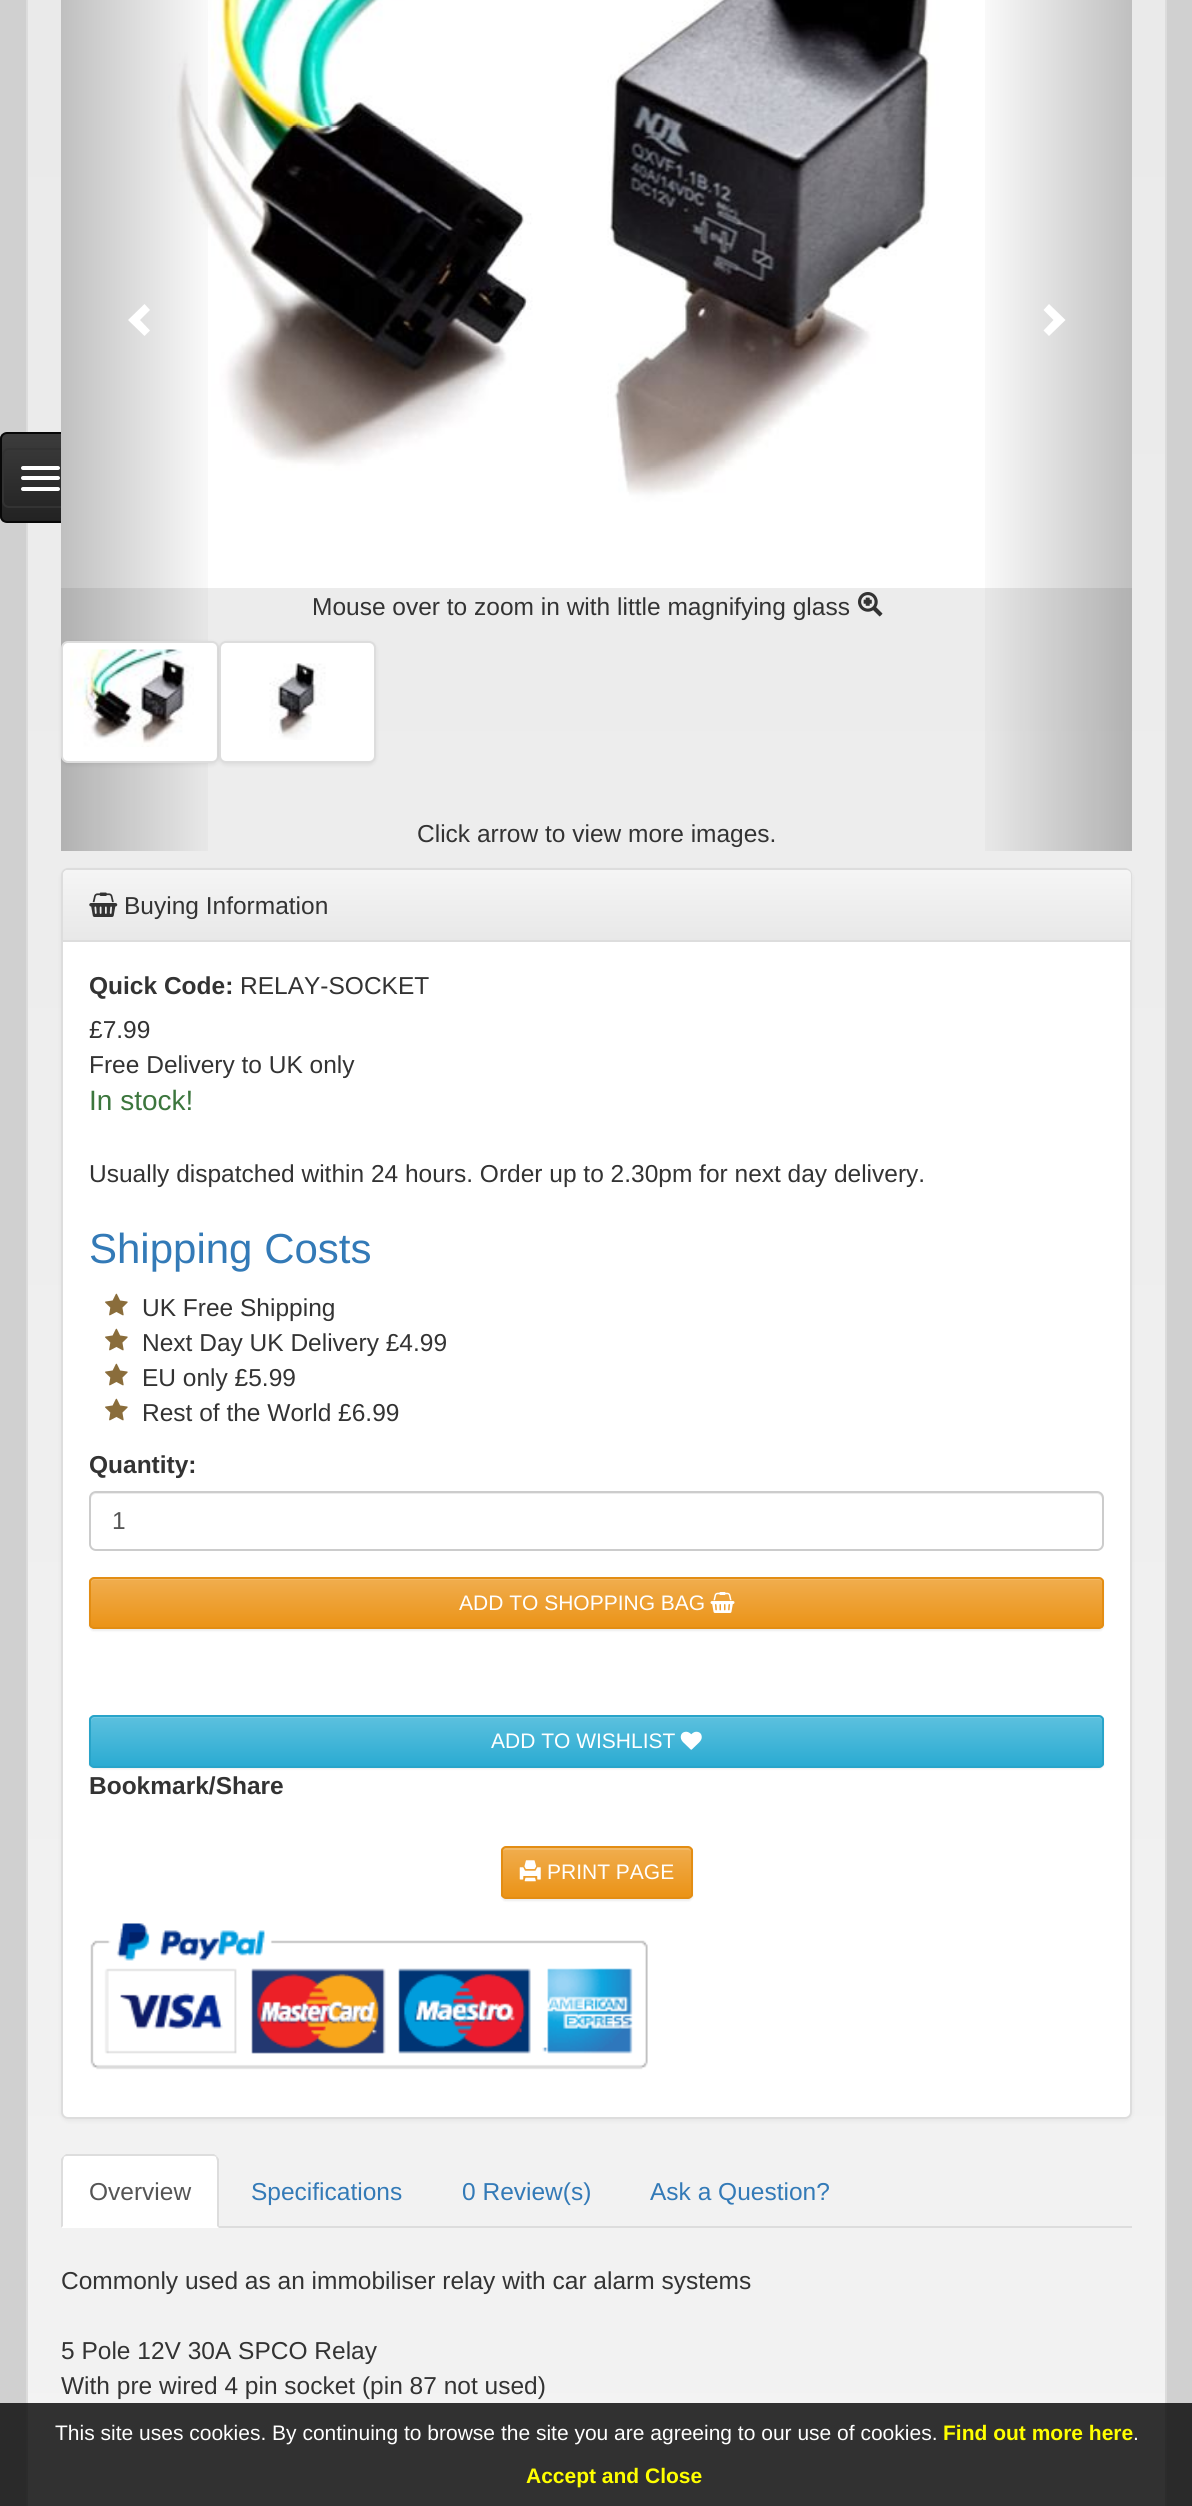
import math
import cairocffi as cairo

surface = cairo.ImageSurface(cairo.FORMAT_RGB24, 1192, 2506)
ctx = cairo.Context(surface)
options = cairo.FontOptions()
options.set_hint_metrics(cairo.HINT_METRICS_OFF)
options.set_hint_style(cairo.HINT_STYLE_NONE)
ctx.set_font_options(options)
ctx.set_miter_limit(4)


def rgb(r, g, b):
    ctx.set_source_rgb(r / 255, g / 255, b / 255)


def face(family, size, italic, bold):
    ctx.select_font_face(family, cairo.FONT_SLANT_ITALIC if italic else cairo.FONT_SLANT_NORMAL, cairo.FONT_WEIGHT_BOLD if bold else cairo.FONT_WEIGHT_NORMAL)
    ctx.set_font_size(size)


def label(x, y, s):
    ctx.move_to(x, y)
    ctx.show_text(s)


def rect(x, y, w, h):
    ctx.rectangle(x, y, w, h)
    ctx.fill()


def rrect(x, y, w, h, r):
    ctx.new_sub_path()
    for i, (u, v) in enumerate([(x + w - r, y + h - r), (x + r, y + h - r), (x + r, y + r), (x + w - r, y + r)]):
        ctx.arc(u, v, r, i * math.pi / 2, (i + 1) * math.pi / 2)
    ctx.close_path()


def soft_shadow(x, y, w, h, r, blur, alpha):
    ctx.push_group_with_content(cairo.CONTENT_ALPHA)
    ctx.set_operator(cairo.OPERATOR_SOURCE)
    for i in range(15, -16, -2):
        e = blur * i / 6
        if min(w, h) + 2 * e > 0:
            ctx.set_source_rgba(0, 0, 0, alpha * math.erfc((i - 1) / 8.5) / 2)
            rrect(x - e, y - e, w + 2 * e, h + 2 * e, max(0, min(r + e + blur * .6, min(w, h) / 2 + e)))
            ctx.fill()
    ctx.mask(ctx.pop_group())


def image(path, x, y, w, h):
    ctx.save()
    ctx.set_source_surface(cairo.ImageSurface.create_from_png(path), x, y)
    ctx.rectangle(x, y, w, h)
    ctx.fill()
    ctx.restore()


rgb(208, 208, 208)
ctx.paint()
gradient = cairo.LinearGradient(597, -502, 597, 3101)
gradient.add_color_stop_rgba(0, 0.91, 0.91, 0.91, 1)
gradient.add_color_stop_rgba(1, 0.961, 0.961, 0.961, 1)
ctx.set_source(gradient)
rect(28, 0, 1137, 2506)
ctx.rectangle(27, -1, 1139, 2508)
rgb(220, 220, 220)
ctx.stroke()
ctx.save()
rrect(0, 432, 107, 91, 7)
ctx.clip()
gradient = cairo.LinearGradient(53, 434, 53, 522)
gradient.add_color_stop_rgba(0, 0.235, 0.235, 0.235, 1)
gradient.add_color_stop_rgba(1, 0.133, 0.133, 0.133, 1)
ctx.set_source(gradient)
rect(0, 434, 61, 88)
ctx.restore()
rrect(1, 433, 105, 89, 6)
rgb(8, 8, 8)
ctx.stroke()
rrect(3, 449, 75, 58, 6)
rgb(51, 51, 51)
ctx.stroke()
rgb(255, 255, 255)
rrect(21, 466, 39, 4, 2)
ctx.fill()
rrect(21, 476, 39, 4, 2)
ctx.fill()
rrect(21, 487, 39, 4, 2)
ctx.fill()
image('image0.png', 61, 0, 1071, 588)
gradient = cairo.LinearGradient(61, 318, 222, 318)
gradient.add_color_stop_rgba(0, 0, 0, 0, 0.25)
gradient.add_color_stop_rgba(1, 0, 0, 0, 0)
ctx.set_source(gradient)
rect(61, 0, 147, 851)
rgb(255, 255, 255)
ctx.new_path()
ctx.move_to(150, 310)
ctx.line_to(140, 320)
ctx.line_to(150, 330.5)
ctx.line_to(144.5, 336)
ctx.line_to(128, 320)
ctx.line_to(144.5, 304)
ctx.close_path()
ctx.fill()
face('Liberation Sans', 24.5, 0, 0)
rgb(51, 51, 51)
label(312, 615, 'Mouse over to zoom in with little magnifying glass')
image('image1.png', 858, 592, 25, 25)
gradient = cairo.LinearGradient(971, 318, 1132, 318)
gradient.add_color_stop_rgba(0, 0, 0, 0, 0)
gradient.add_color_stop_rgba(1, 0, 0, 0, 0.25)
ctx.set_source(gradient)
rect(985, 0, 147, 851)
rgb(255, 255, 255)
ctx.new_path()
ctx.move_to(1065.5, 320)
ctx.line_to(1049, 336)
ctx.line_to(1043.5, 330.5)
ctx.line_to(1053.5, 320)
ctx.line_to(1043.5, 310)
ctx.line_to(1049, 304)
ctx.close_path()
ctx.fill()
rgb(0, 0, 0)
soft_shadow(61, 642, 158, 123, 7, 2, 0.07)
rgb(255, 255, 255)
rrect(62, 642, 156, 120, 6)
ctx.fill_preserve()
rgb(221, 221, 221)
ctx.stroke()
image('image2.png', 70, 649, 124, 98)
rgb(0, 0, 0)
soft_shadow(219, 642, 157, 123, 7, 2, 0.07)
rgb(255, 255, 255)
rrect(220, 642, 155, 120, 6)
ctx.fill_preserve()
rgb(221, 221, 221)
ctx.stroke()
image('image3.png', 269, 663, 57, 77)
rgb(51, 51, 51)
label(417, 842, 'Click arrow to view more images.')
rgb(0, 0, 0)
soft_shadow(61, 870, 1071, 1251, 7, 2, 0.05)
rgb(255, 255, 255)
rrect(62, 869, 1069, 1249, 6)
ctx.fill_preserve()
rgb(221, 221, 221)
ctx.stroke()
gradient = cairo.LinearGradient(597, 870, 597, 940)
gradient.add_color_stop_rgba(0, 0.961, 0.961, 0.961, 1)
gradient.add_color_stop_rgba(1, 0.91, 0.91, 0.91, 1)
ctx.set_source(gradient)
ctx.new_path()
ctx.move_to(68, 870)
ctx.line_to(1126, 870)
ctx.curve_to(1129, 870, 1131, 872, 1131, 875)
ctx.line_to(1131, 940)
ctx.line_to(63, 940)
ctx.line_to(63, 875)
ctx.curve_to(63, 872, 65, 870, 68, 870)
ctx.close_path()
ctx.fill()
rgb(221, 221, 221)
rect(63, 940, 1068, 2)
image('image4.png', 89, 892, 29, 25)
rgb(51, 51, 51)
label(124, 914, 'Buying Information')
face('Liberation Sans', 24.5, 0, 1)
label(89, 994, 'Quick Code:')
face('Liberation Sans', 24.5, 0, 0)
label(240, 994, 'RELAY-SOCKET')
label(89, 1038, '£7.99')
label(89, 1073, 'Free Delivery to UK only')
face('Liberation Sans', 28, 0, 0)
rgb(60, 118, 61)
label(89, 1110, 'In stock!')
face('Liberation Sans', 24.5, 0, 0)
rgb(51, 51, 51)
label(89, 1182, 'Usually dispatched within 24 hours. Order up to 2.30pm for next day delivery.')
face('Liberation Sans', 42, 0, 0)
rgb(51, 122, 183)
label(89, 1263, 'Shipping Costs')
image('image5.png', 105, 1293, 23, 23)
face('Liberation Sans', 24.5, 0, 0)
rgb(51, 51, 51)
label(142, 1316, 'UK Free Shipping')
image('image5.png', 105, 1328, 23, 23)
label(142, 1351, 'Next Day UK Delivery £4.99')
image('image5.png', 105, 1363, 23, 23)
label(142, 1386, 'EU only £5.99')
image('image5.png', 105, 1398, 23, 23)
label(142, 1421, 'Rest of the World £6.99')
face('Liberation Sans', 24.5, 0, 1)
label(89, 1473, 'Quantity:')
rgb(236, 236, 236)
ctx.new_path()
ctx.move_to(96, 1494)
ctx.line_to(1097, 1494)
ctx.curve_to(1100, 1494, 1102, 1497, 1102, 1500)
ctx.line_to(1102, 1545)
ctx.line_to(1101, 1548)
ctx.curve_to(1102, 1547, 1103, 1545, 1103, 1544)
ctx.line_to(1103, 1498)
ctx.curve_to(1103, 1495, 1101, 1493, 1098, 1493)
ctx.line_to(96, 1493)
ctx.curve_to(93, 1493, 91, 1495, 91, 1498)
ctx.line_to(91, 1500)
ctx.curve_to(91, 1497, 93, 1494, 96, 1494)
ctx.close_path()
ctx.fill()
rrect(90, 1492, 1013, 58, 6)
rgb(204, 204, 204)
ctx.stroke()
face('Liberation Sans', 24.5, 0, 0)
rgb(85, 85, 85)
label(112, 1529, '1')
rgb(0, 0, 0)
soft_shadow(89, 1579, 1015, 52, 5, 1, 0.07)
ctx.save()
rrect(89, 1577, 1015, 52, 5)
ctx.clip()
gradient = cairo.LinearGradient(597, 1579, 597, 1628)
gradient.add_color_stop_rgba(0, 0.941, 0.678, 0.306, 1)
gradient.add_color_stop_rgba(1, 0.922, 0.576, 0.086, 1)
ctx.set_source(gradient)
rect(89, 1579, 1015, 49)
ctx.restore()
ctx.set_source_rgba(1, 1, 1, 0.15)
ctx.new_path()
ctx.move_to(94, 1580)
ctx.line_to(1099, 1580)
ctx.curve_to(1101, 1580, 1102, 1582, 1102, 1584)
ctx.line_to(1102, 1627)
ctx.curve_to(1103, 1626, 1103, 1625, 1103, 1624)
ctx.line_to(1103, 1583)
ctx.curve_to(1103, 1581, 1101, 1579, 1099, 1579)
ctx.line_to(95, 1579)
ctx.curve_to(93, 1579, 91, 1581, 91, 1583)
ctx.line_to(91, 1584)
ctx.curve_to(91, 1582, 93, 1580, 94, 1580)
ctx.close_path()
ctx.fill()
rrect(90, 1578, 1013, 50, 4)
rgb(227, 141, 19)
ctx.stroke()
face('Liberation Sans', 21, 0, 0)
rgb(255, 255, 255)
label(459, 1610, 'ADD TO SHOPPING BAG')
image('image6.png', 710, 1592, 25, 21)
rgb(0, 0, 0)
soft_shadow(89, 1717, 1015, 52, 5, 1, 0.07)
ctx.save()
rrect(89, 1715, 1015, 53, 5)
ctx.clip()
gradient = cairo.LinearGradient(597, 1717, 597, 1766)
gradient.add_color_stop_rgba(0, 0.357, 0.753, 0.871, 1)
gradient.add_color_stop_rgba(1, 0.165, 0.671, 0.824, 1)
ctx.set_source(gradient)
rect(89, 1717, 1015, 49)
ctx.restore()
ctx.set_source_rgba(1, 1, 1, 0.15)
ctx.new_path()
ctx.move_to(94, 1718)
ctx.line_to(1099, 1718)
ctx.curve_to(1101, 1718, 1102, 1720, 1102, 1722)
ctx.line_to(1102, 1765)
ctx.curve_to(1103, 1764, 1103, 1763, 1103, 1762)
ctx.line_to(1103, 1721)
ctx.curve_to(1103, 1719, 1101, 1717, 1099, 1717)
ctx.line_to(95, 1717)
ctx.curve_to(93, 1717, 91, 1719, 91, 1721)
ctx.line_to(91, 1722)
ctx.curve_to(91, 1720, 93, 1718, 94, 1718)
ctx.close_path()
ctx.fill()
rrect(90, 1716, 1013, 51, 4)
rgb(40, 164, 201)
ctx.stroke()
rgb(255, 255, 255)
label(491, 1748, 'ADD TO WISHLIST')
image('image7.png', 680, 1731, 22, 19)
face('Liberation Sans', 24.5, 0, 1)
rgb(51, 51, 51)
label(89, 1794, 'Bookmark/Share')
rgb(0, 0, 0)
soft_shadow(501, 1848, 192, 53, 5, 1, 0.07)
ctx.save()
rrect(501, 1846, 192, 53, 5)
ctx.clip()
gradient = cairo.LinearGradient(597, 1848, 597, 1897)
gradient.add_color_stop_rgba(0, 0.941, 0.678, 0.306, 1)
gradient.add_color_stop_rgba(1, 0.922, 0.576, 0.086, 1)
ctx.set_source(gradient)
rect(501, 1848, 192, 49)
ctx.restore()
rgb(242, 185, 103)
ctx.new_path()
ctx.move_to(506, 1850)
ctx.line_to(688, 1850)
ctx.curve_to(690, 1850, 691, 1851, 691, 1853)
ctx.curve_to(691, 1850, 690, 1848, 687, 1848)
ctx.line_to(505, 1848)
ctx.curve_to(503, 1849, 502, 1851, 502, 1853)
ctx.curve_to(502, 1851, 504, 1850, 506, 1850)
ctx.close_path()
ctx.fill()
rrect(502, 1847, 190, 51, 4)
rgb(227, 141, 19)
ctx.stroke()
image('image8.png', 519, 1860, 22, 22)
face('Liberation Sans', 21, 0, 0)
rgb(255, 255, 255)
label(547, 1879, 'PRINT PAGE')
image('image9.png', 90, 1923, 558, 147)
rgb(221, 221, 221)
rect(219, 2226, 913, 2)
rgb(255, 255, 255)
ctx.new_path()
ctx.move_to(68, 2154)
ctx.line_to(212, 2154)
ctx.curve_to(216, 2154, 219, 2157, 219, 2161)
ctx.line_to(219, 2228)
ctx.line_to(61, 2228)
ctx.line_to(61, 2161)
ctx.curve_to(61, 2157, 64, 2154, 68, 2154)
ctx.close_path()
ctx.fill()
rgb(221, 221, 221)
ctx.new_path()
ctx.move_to(68, 2156)
ctx.curve_to(66, 2156, 65, 2156, 64, 2157)
ctx.line_to(63, 2156)
ctx.line_to(66, 2154)
ctx.line_to(214, 2154)
ctx.line_to(217, 2156)
ctx.line_to(216, 2157)
ctx.curve_to(215, 2156, 214, 2156, 212, 2156)
ctx.close_path()
ctx.fill()
ctx.new_path()
ctx.move_to(217, 2156)
ctx.line_to(219, 2159)
ctx.line_to(219, 2228)
ctx.line_to(217, 2226)
ctx.line_to(217, 2161)
ctx.curve_to(217, 2160, 216, 2158, 216, 2157)
ctx.close_path()
ctx.fill()
ctx.new_path()
ctx.move_to(61, 2228)
ctx.line_to(61, 2159)
ctx.line_to(63, 2156)
ctx.line_to(64, 2157)
ctx.curve_to(64, 2158, 63, 2160, 63, 2161)
ctx.line_to(63, 2226)
ctx.close_path()
ctx.fill()
face('Liberation Sans', 24.5, 0, 0)
rgb(85, 85, 85)
label(89, 2200, 'Overview')
rgb(51, 122, 183)
label(251, 2200, 'Specifications')
label(462, 2200, '0 Review(s)')
label(650, 2200, 'Ask a Question?')
rgb(51, 51, 51)
label(61, 2289, 'Commonly used as an immobiliser relay with car alarm systems')
label(61, 2359, '5 Pole 12V 30A SPCO Relay')
label(61, 2394, 'With pre wired 4 pin socket (pin 87 not used)')
ctx.set_source_rgba(0, 0, 0, 0.8)
rect(0, 2403, 1192, 103)
face('Liberation Sans', 21, 0, 0)
rgb(255, 255, 255)
label(55, 2440, 'This site uses cookies. By continuing to browse the site you are agreeing to our use of cookies.')
face('Liberation Sans', 21, 0, 1)
rgb(255, 255, 0)
label(943, 2440, 'Find out more here')
face('Liberation Sans', 21, 0, 0)
rgb(255, 255, 255)
label(1133, 2440, '.')
face('Liberation Sans', 21, 0, 1)
rgb(255, 255, 0)
label(526, 2483, 'Accept and Close')
surface.write_to_png('render.png')
